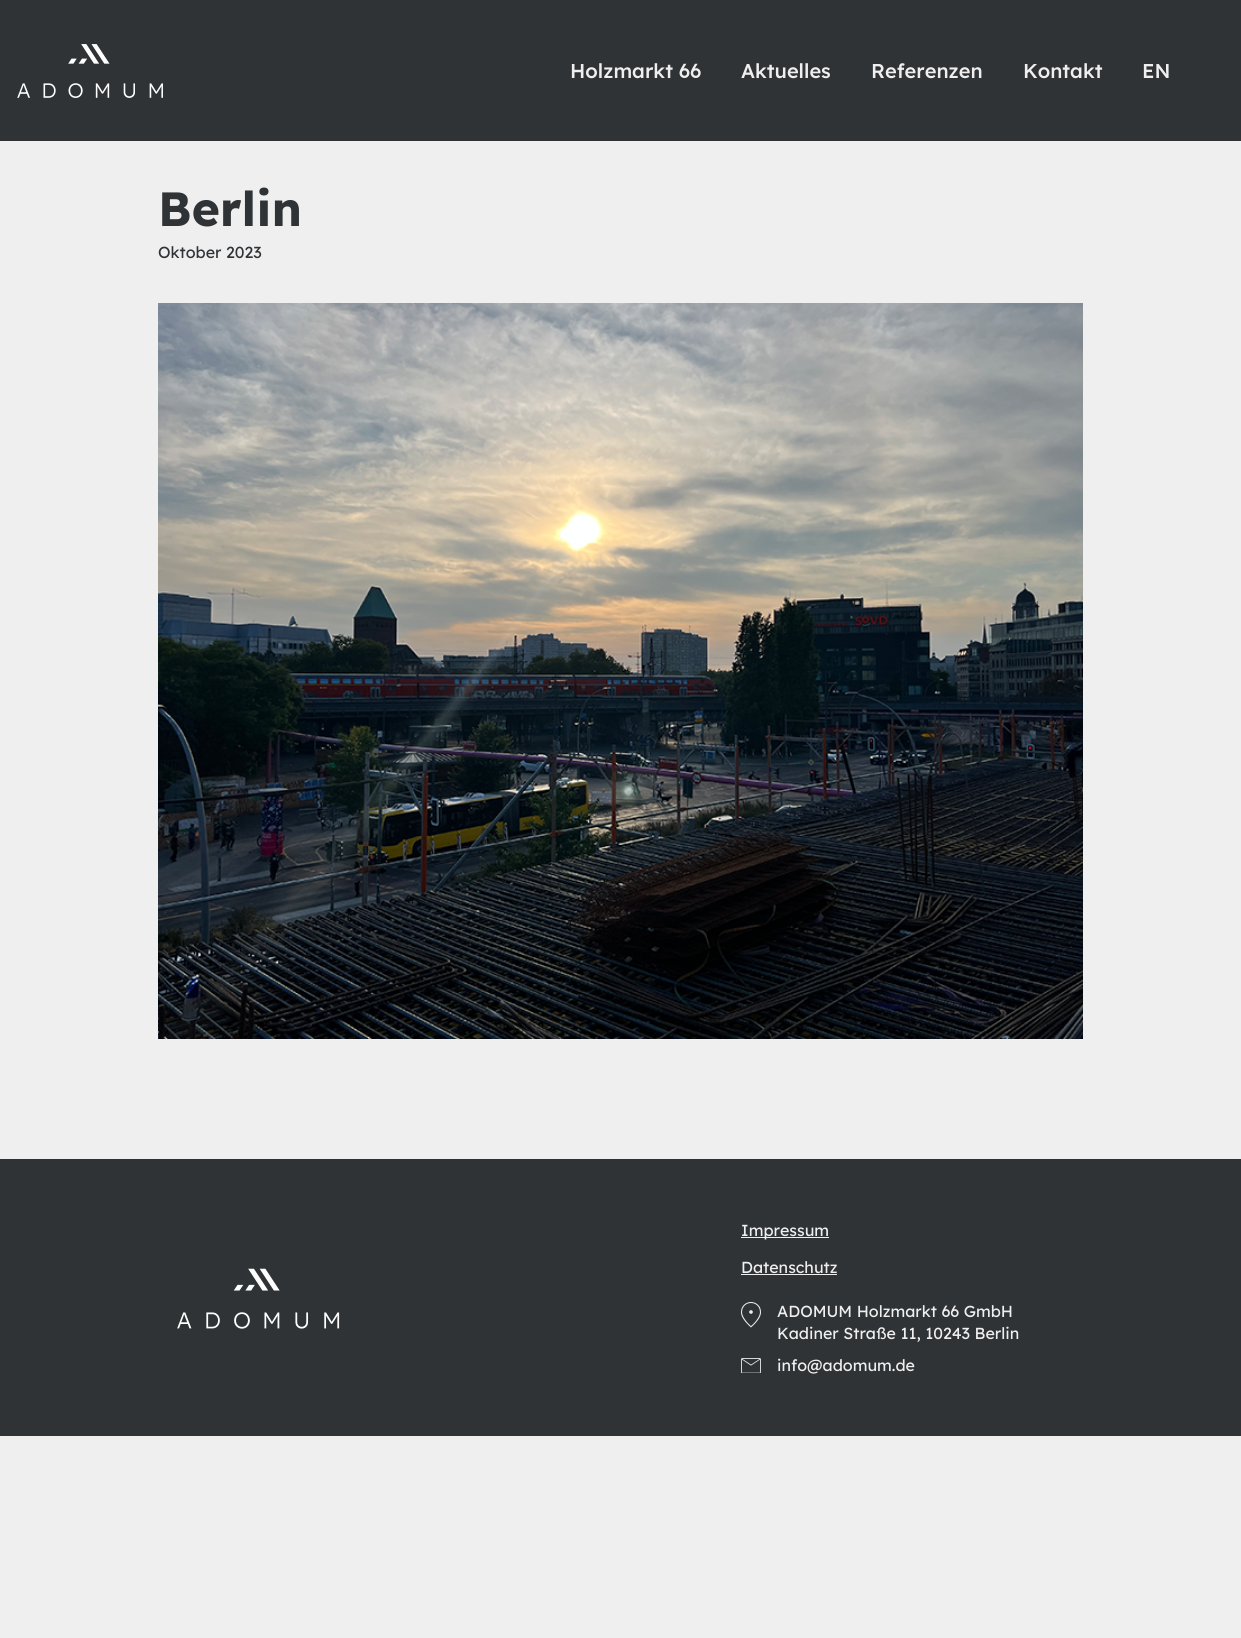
import math
import cairocffi as cairo

surface = cairo.ImageSurface(cairo.FORMAT_RGB24, 1241, 1638)
ctx = cairo.Context(surface)
options = cairo.FontOptions()
options.set_hint_metrics(cairo.HINT_METRICS_OFF)
options.set_hint_style(cairo.HINT_STYLE_NONE)
ctx.set_font_options(options)
ctx.set_miter_limit(4)


def rgb(r, g, b):
    ctx.set_source_rgb(r / 255, g / 255, b / 255)


def face(family, size, italic, bold):
    ctx.select_font_face(family, cairo.FONT_SLANT_ITALIC if italic else cairo.FONT_SLANT_NORMAL, cairo.FONT_WEIGHT_BOLD if bold else cairo.FONT_WEIGHT_NORMAL)
    ctx.set_font_size(size)


def label(x, y, s):
    ctx.move_to(x, y)
    ctx.show_text(s)


def rect(x, y, w, h):
    ctx.rectangle(x, y, w, h)
    ctx.fill()


def image(path, x, y, w, h):
    ctx.save()
    ctx.set_source_surface(cairo.ImageSurface.create_from_png(path), x, y)
    ctx.rectangle(x, y, w, h)
    ctx.fill()
    ctx.restore()


rgb(239, 239, 239)
ctx.paint()
rgb(47, 51, 54)
rect(0, 0, 1241, 141)
image('image0.png', 17, 44, 146, 54)
face('Lexend Medium', 20, 0, 0)
rgb(239, 239, 239)
label(570, 78, 'Holzmarkt 66')
label(741, 78, 'Aktuelles')
label(871, 78, 'Referenzen')
label(1023, 78, 'Kontakt')
label(1142, 78, 'EN')
face('Lexend', 48, 0, 1)
rgb(47, 51, 54)
label(158, 226, 'Berlin')
face('Lexend', 16, 0, 0)
label(158, 258, 'Oktober 2023')
image('image1.png', 158, 303, 925, 736)
rect(0, 1159, 1241, 277)
image('image2.png', 177, 1268, 163, 61)
rgb(239, 239, 239)
rect(741, 1237, 88, 1)
label(741, 1236, 'Impressum')
label(741, 1273, 'Datenschutz')
rect(741, 1274, 96, 1)
image('image3.png', 741, 1302, 20, 26)
label(777, 1317, 'ADOMUM Holzmarkt 66 GmbH')
label(777, 1339, 'Kadiner Straße 11, 10243 Berlin')
image('image4.png', 741, 1358, 20, 15)
label(777, 1371, 'info@adomum.de')
surface.write_to_png('render.png')
